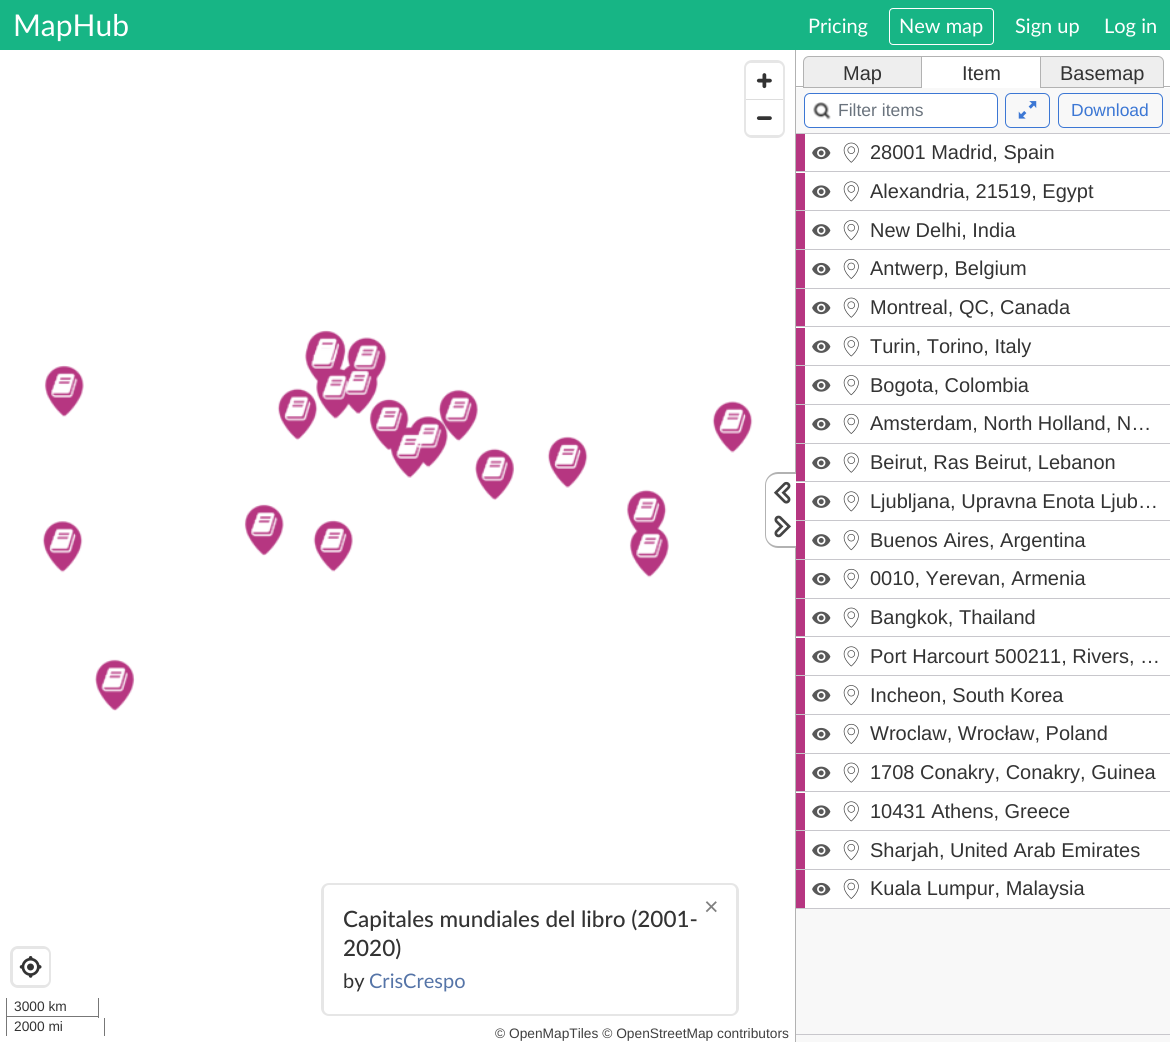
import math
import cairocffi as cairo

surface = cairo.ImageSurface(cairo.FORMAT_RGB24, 1170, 1042)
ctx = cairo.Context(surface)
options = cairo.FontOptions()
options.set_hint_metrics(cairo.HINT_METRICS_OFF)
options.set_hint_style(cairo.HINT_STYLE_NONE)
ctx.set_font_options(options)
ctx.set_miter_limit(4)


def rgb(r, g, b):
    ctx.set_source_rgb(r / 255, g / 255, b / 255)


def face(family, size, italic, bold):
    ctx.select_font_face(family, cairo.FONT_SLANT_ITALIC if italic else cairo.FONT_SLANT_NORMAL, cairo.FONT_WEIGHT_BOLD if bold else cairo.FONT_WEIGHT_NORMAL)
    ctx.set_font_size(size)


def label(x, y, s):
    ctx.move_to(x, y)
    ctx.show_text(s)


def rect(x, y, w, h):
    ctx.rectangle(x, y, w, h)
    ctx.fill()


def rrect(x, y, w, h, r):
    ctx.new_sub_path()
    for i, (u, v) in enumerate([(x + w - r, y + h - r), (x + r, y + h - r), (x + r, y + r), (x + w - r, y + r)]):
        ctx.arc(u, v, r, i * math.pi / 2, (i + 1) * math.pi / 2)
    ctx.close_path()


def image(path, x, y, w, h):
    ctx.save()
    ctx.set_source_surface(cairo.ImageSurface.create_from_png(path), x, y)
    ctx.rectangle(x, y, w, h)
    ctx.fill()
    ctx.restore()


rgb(255, 255, 255)
ctx.paint()
rgb(23, 181, 133)
rect(0, 0, 1170, 50)
face('Lato', 30, 0, 0)
rgb(255, 255, 255)
label(13, 36, 'MapHub')
face('Lato', 20, 0, 0)
label(808, 33, 'Pricing')
rrect(889.5, 8.5, 104, 36, 3.5)
ctx.set_line_width(1)
ctx.stroke()
label(899, 33, 'New map')
label(1015, 33, 'Sign up')
label(1104, 33, 'Log in')
rgb(248, 248, 248)
rect(796, 88, 374, 954)
rgb(178, 178, 178)
rect(795, 50, 1, 992)
rect(796, 86, 374, 1)
rgb(238, 238, 238)
ctx.new_path()
ctx.move_to(809, 56.5)
ctx.line_to(922.5, 56.5)
ctx.line_to(922.5, 87.5)
ctx.line_to(803.5, 87.5)
ctx.line_to(803.5, 62)
ctx.curve_to(803.5, 59, 806, 56.5, 809, 56.5)
ctx.close_path()
ctx.fill_preserve()
rgb(178, 178, 178)
ctx.stroke()
face('Liberation Sans', 20, 0, 0)
rgb(51, 51, 51)
label(843, 80, 'Map')
rgb(255, 255, 255)
rect(922, 57, 118, 31)
rgb(178, 178, 178)
rect(921, 56, 120, 1)
rect(921, 56, 1, 32)
rgb(51, 51, 51)
label(962, 80, 'Item')
rgb(238, 238, 238)
ctx.new_path()
ctx.move_to(1040.5, 56.5)
ctx.line_to(1158, 56.5)
ctx.curve_to(1161, 56.5, 1163.5, 59, 1163.5, 62)
ctx.line_to(1163.5, 87.5)
ctx.line_to(1040.5, 87.5)
ctx.close_path()
ctx.fill_preserve()
rgb(178, 178, 178)
ctx.stroke()
rgb(51, 51, 51)
label(1060, 80, 'Basemap')
rgb(255, 255, 255)
ctx.new_path()
ctx.move_to(777, 474)
ctx.line_to(796, 474)
ctx.line_to(796, 546)
ctx.line_to(777, 546)
ctx.curve_to(771, 546, 766, 541, 766, 535)
ctx.line_to(766, 485)
ctx.curve_to(766, 479, 771, 474, 777, 474)
ctx.close_path()
ctx.fill()
rgb(178, 178, 178)
ctx.set_fill_rule(cairo.FILL_RULE_EVEN_ODD)
ctx.new_path()
ctx.move_to(778, 472)
ctx.line_to(796, 472)
ctx.line_to(796, 548)
ctx.line_to(778, 548)
ctx.curve_to(771, 548, 765, 542, 765, 535)
ctx.line_to(765, 485)
ctx.curve_to(765, 478, 771, 472, 778, 472)
ctx.close_path()
ctx.move_to(778, 474)
ctx.line_to(796, 474)
ctx.line_to(796, 546)
ctx.line_to(778, 546)
ctx.curve_to(771, 546, 766, 541, 766, 535)
ctx.line_to(766, 485)
ctx.curve_to(766, 479, 771, 474, 778, 474)
ctx.close_path()
ctx.fill()
image('image0.png', 773, 481, 18, 23)
image('image1.png', 774, 515, 17, 23)
rgb(255, 255, 255)
rrect(804.5, 93.5, 193, 34, 5.5)
ctx.fill_preserve()
rgb(60, 119, 212)
ctx.stroke()
image('image2.png', 813, 102, 18, 18)
face('Liberation Sans', 17.5, 0, 0)
rgb(106, 115, 125)
label(838, 116, 'Filter items')
rrect(1005.5, 93.5, 44, 34, 5.5)
rgb(60, 119, 212)
ctx.stroke()
image('image3.png', 1018, 101, 19, 18)
rrect(1058.5, 93.5, 104, 34, 5.5)
ctx.stroke()
label(1071, 116, 'Download')
rgb(200, 199, 204)
rect(796, 133, 374, 1)
rect(796, 1034, 374, 1)
rgb(255, 255, 255)
rect(796, 134, 374, 39)
rgb(200, 199, 204)
rect(796, 171, 374, 1)
rgb(182, 54, 129)
rect(796, 134, 9, 37)
image('image4.png', 812, 146, 19, 14)
image('image5.png', 843, 142, 16, 21)
face('Liberation Sans', 20, 0, 0)
rgb(51, 51, 51)
label(870, 159, '28001 Madrid, Spain')
rgb(255, 255, 255)
rect(805, 173, 365, 37)
rgb(200, 199, 204)
rect(796, 210, 374, 1)
rgb(182, 54, 129)
rect(796, 173, 9, 37)
image('image6.png', 812, 185, 19, 13)
image('image7.png', 843, 181, 16, 21)
rgb(51, 51, 51)
label(870, 198, 'Alexandria, 21519, Egypt')
rgb(255, 255, 255)
rect(805, 211, 365, 38)
rgb(200, 199, 204)
rect(796, 249, 374, 1)
rgb(182, 54, 129)
rect(796, 211, 9, 38)
image('image8.png', 812, 224, 19, 13)
image('image9.png', 843, 220, 16, 21)
rgb(51, 51, 51)
label(870, 237, 'New Delhi, India')
rgb(255, 255, 255)
rect(805, 250, 365, 38)
rgb(200, 199, 204)
rect(796, 288, 374, 1)
rgb(182, 54, 129)
rect(796, 250, 9, 38)
image('image10.png', 812, 262, 19, 14)
image('image11.png', 843, 258, 16, 21)
rgb(51, 51, 51)
label(870, 275, 'Antwerp, Belgium')
rgb(255, 255, 255)
rect(796, 289, 374, 39)
rgb(200, 199, 204)
rect(796, 326, 374, 1)
rgb(182, 54, 129)
rect(796, 289, 9, 37)
image('image4.png', 812, 301, 19, 14)
image('image5.png', 843, 297, 16, 21)
rgb(51, 51, 51)
label(870, 314, 'Montreal, QC, Canada')
rgb(255, 255, 255)
rect(805, 328, 365, 37)
rgb(200, 199, 204)
rect(796, 365, 374, 1)
rgb(182, 54, 129)
rect(796, 328, 9, 37)
image('image6.png', 812, 340, 19, 13)
image('image7.png', 843, 336, 16, 21)
rgb(51, 51, 51)
label(870, 353, 'Turin, Torino, Italy')
rgb(255, 255, 255)
rect(805, 366, 365, 38)
rgb(200, 199, 204)
rect(796, 404, 374, 1)
rgb(182, 54, 129)
rect(796, 366, 9, 38)
image('image8.png', 812, 379, 19, 13)
image('image9.png', 843, 375, 16, 21)
rgb(51, 51, 51)
label(870, 392, 'Bogota, Colombia')
rgb(255, 255, 255)
rect(805, 405, 365, 38)
rgb(200, 199, 204)
rect(796, 443, 374, 1)
rgb(182, 54, 129)
rect(796, 405, 9, 38)
image('image10.png', 812, 417, 19, 14)
image('image11.png', 843, 413, 16, 21)
rgb(51, 51, 51)
label(870, 430, 'Amsterdam, North Holland, N…')
rgb(255, 255, 255)
rect(796, 444, 374, 39)
rgb(200, 199, 204)
rect(796, 481, 374, 1)
rgb(182, 54, 129)
rect(796, 444, 9, 37)
image('image4.png', 812, 456, 19, 14)
image('image5.png', 843, 452, 16, 21)
rgb(51, 51, 51)
label(870, 469, 'Beirut, Ras Beirut, Lebanon')
rgb(255, 255, 255)
rect(805, 483, 365, 37)
rgb(200, 199, 204)
rect(796, 520, 374, 1)
rgb(182, 54, 129)
rect(796, 483, 9, 37)
image('image6.png', 812, 495, 19, 13)
image('image7.png', 843, 491, 16, 21)
rgb(51, 51, 51)
label(870, 508, 'Ljubljana, Upravna Enota Ljub…')
rgb(255, 255, 255)
rect(805, 521, 365, 38)
rgb(200, 199, 204)
rect(796, 559, 374, 1)
rgb(182, 54, 129)
rect(796, 521, 9, 38)
image('image8.png', 812, 534, 19, 13)
image('image9.png', 843, 530, 16, 21)
rgb(51, 51, 51)
label(870, 547, 'Buenos Aires, Argentina')
rgb(255, 255, 255)
rect(805, 560, 365, 38)
rgb(200, 199, 204)
rect(796, 598, 374, 1)
rgb(182, 54, 129)
rect(796, 560, 9, 38)
image('image10.png', 812, 572, 19, 14)
image('image11.png', 843, 568, 16, 21)
rgb(51, 51, 51)
label(870, 585, '0010, Yerevan, Armenia')
rgb(255, 255, 255)
rect(796, 599, 374, 39)
rgb(200, 199, 204)
rect(796, 636, 374, 1)
rgb(182, 54, 129)
rect(796, 599, 9, 37)
image('image4.png', 812, 611, 19, 14)
image('image5.png', 843, 607, 16, 21)
rgb(51, 51, 51)
label(870, 624, 'Bangkok, Thailand')
rgb(255, 255, 255)
rect(805, 638, 365, 37)
rgb(200, 199, 204)
rect(796, 675, 374, 1)
rgb(182, 54, 129)
rect(796, 638, 9, 37)
image('image6.png', 812, 650, 19, 13)
image('image7.png', 843, 646, 16, 21)
rgb(51, 51, 51)
label(870, 663, 'Port Harcourt 500211, Rivers, …')
rgb(255, 255, 255)
rect(805, 676, 365, 38)
rgb(200, 199, 204)
rect(796, 714, 374, 1)
rgb(182, 54, 129)
rect(796, 676, 9, 38)
image('image8.png', 812, 689, 19, 13)
image('image9.png', 843, 685, 16, 21)
rgb(51, 51, 51)
label(870, 702, 'Incheon, South Korea')
rgb(255, 255, 255)
rect(805, 715, 365, 38)
rgb(200, 199, 204)
rect(796, 753, 374, 1)
rgb(182, 54, 129)
rect(796, 715, 9, 38)
image('image10.png', 812, 727, 19, 14)
image('image11.png', 843, 723, 16, 21)
rgb(51, 51, 51)
label(870, 740, 'Wroclaw, Wrocław, Poland')
rgb(255, 255, 255)
rect(796, 754, 374, 39)
rgb(200, 199, 204)
rect(796, 791, 374, 1)
rgb(182, 54, 129)
rect(796, 754, 9, 37)
image('image4.png', 812, 766, 19, 14)
image('image5.png', 843, 762, 16, 21)
rgb(51, 51, 51)
label(870, 779, '1708 Conakry, Conakry, Guinea')
rgb(255, 255, 255)
rect(805, 793, 365, 37)
rgb(200, 199, 204)
rect(796, 830, 374, 1)
rgb(182, 54, 129)
rect(796, 793, 9, 37)
image('image6.png', 812, 805, 19, 13)
image('image7.png', 843, 801, 16, 21)
rgb(51, 51, 51)
label(870, 818, '10431 Athens, Greece')
rgb(255, 255, 255)
rect(805, 831, 365, 38)
rgb(200, 199, 204)
rect(796, 869, 374, 1)
rgb(182, 54, 129)
rect(796, 831, 9, 38)
image('image8.png', 812, 844, 19, 13)
image('image9.png', 843, 840, 16, 21)
rgb(51, 51, 51)
label(870, 857, 'Sharjah, United Arab Emirates')
rgb(255, 255, 255)
rect(805, 870, 365, 38)
rgb(200, 199, 204)
rect(796, 908, 374, 1)
rgb(182, 54, 129)
rect(796, 870, 9, 38)
image('image10.png', 812, 882, 19, 14)
image('image11.png', 843, 878, 16, 21)
rgb(51, 51, 51)
label(870, 895, 'Kuala Lumpur, Malaysia')
rrect(322.5, 884.5, 415, 130, 6.5)
rgb(230, 230, 230)
ctx.set_line_width(3)
ctx.stroke()
rgb(255, 255, 255)
rrect(324, 885, 412, 129, 5)
ctx.fill()
face('Liberation Sans', 25, 0, 0)
rgb(128, 128, 128)
label(704, 915, '×')
face('Lato Medium', 22.5, 0, 0)
rgb(51, 51, 51)
label(343, 927, 'Capitales mundiales del libro (2001-')
label(343, 956, '2020)')
face('Lato', 20, 0, 0)
label(343, 988, 'by')
rgb(85, 116, 167)
label(369, 988, 'CrisCrespo')
image('image12.png', 42, 330, 711, 381)
rrect(745.5, 61.5, 38, 75, 6.5)
rgb(230, 230, 230)
ctx.stroke()
rgb(255, 255, 255)
rrect(746, 63, 37, 72, 5)
ctx.fill()
image('image13.png', 756, 73, 16, 16)
rgb(221, 221, 221)
rect(746, 99, 37, 1)
image('image14.png', 756, 116, 16, 4)
rrect(11.5, 947.5, 38, 39, 6.5)
rgb(230, 230, 230)
ctx.stroke()
rgb(255, 255, 255)
rrect(13, 949, 36, 36, 5)
ctx.fill()
image('image15.png', 19, 956, 23, 22)
rgb(119, 119, 119)
rect(98, 998, 1, 20)
rect(6, 1016, 93, 1)
rect(6, 998, 1, 38)
face('Liberation Sans', 13.75, 0, 0)
rgb(51, 51, 51)
label(14, 1011, '3000 km')
rgb(119, 119, 119)
rect(104, 1018, 1, 18)
rgb(51, 51, 51)
label(14, 1031, '2000 mi')
rgb(64, 64, 64)
label(495, 1038, '© OpenMapTiles © OpenStreetMap contributors')
surface.write_to_png('render.png')
